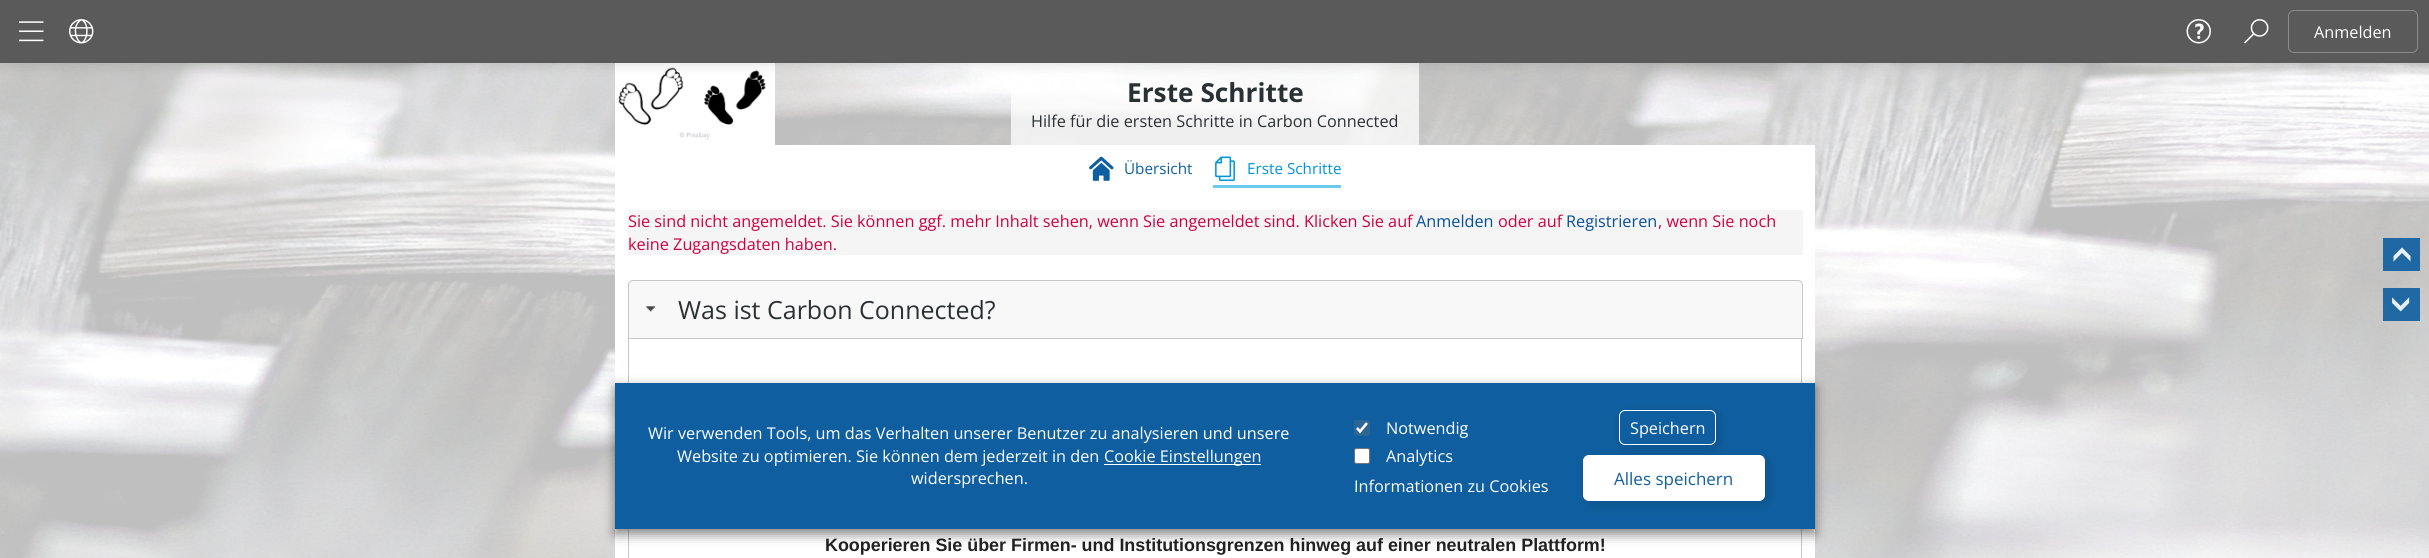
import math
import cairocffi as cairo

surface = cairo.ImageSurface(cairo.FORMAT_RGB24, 2429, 558)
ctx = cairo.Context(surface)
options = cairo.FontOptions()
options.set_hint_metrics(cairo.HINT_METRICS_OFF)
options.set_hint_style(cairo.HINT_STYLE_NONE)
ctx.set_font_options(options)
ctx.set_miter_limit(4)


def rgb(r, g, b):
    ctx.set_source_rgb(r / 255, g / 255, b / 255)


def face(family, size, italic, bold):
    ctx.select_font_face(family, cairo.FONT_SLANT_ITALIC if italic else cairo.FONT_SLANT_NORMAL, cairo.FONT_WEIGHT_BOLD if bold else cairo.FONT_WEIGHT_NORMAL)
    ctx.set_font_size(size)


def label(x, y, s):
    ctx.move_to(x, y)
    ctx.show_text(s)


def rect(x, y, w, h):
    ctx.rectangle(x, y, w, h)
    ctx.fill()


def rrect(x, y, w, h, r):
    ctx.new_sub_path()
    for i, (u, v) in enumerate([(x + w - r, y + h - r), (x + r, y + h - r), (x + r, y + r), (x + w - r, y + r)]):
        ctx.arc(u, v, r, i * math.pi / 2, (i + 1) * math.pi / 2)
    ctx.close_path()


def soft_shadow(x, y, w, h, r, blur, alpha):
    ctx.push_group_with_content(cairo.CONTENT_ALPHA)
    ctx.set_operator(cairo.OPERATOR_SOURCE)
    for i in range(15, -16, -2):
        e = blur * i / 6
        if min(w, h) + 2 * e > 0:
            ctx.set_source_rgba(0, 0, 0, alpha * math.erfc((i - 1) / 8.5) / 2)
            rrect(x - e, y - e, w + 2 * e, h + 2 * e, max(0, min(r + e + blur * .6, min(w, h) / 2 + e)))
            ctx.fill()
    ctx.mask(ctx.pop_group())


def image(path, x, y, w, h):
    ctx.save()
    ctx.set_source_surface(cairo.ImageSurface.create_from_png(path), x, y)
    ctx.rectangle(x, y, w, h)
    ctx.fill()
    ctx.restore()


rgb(255, 255, 255)
ctx.paint()
image('image9.png', 0, 63, 2429, 495)
image('image4.png', 615, 63, 160, 82)
ctx.set_source_rgba(1, 1, 1, 0.75)
rect(1011, 63, 408, 82)
rgb(0, 0, 0)
soft_shadow(0, 4, 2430, 62, 0, 6, 0.1)
rgb(90, 90, 90)
rect(0, 0, 2429, 63)
image('image0.png', 19, 21, 25, 21)
image('image1.png', 69, 19, 25, 25)
image('image2.png', 2186, 19, 25, 25)
image('image3.png', 2244, 19, 25, 25)
rrect(2288.5, 10.5, 129, 42, 5.5)
rgb(138, 138, 138)
ctx.set_line_width(1)
ctx.stroke()
face('Open Sans', 16.25, 0, 0)
rgb(255, 255, 255)
label(2314, 38, 'Anmelden')
face('Open Sans', 26.25, 0, 1)
rgb(41, 49, 52)
label(1127, 102, 'Erste Schritte')
face('Open Sans', 16.25, 0, 0)
label(1031, 127, 'Hilfe für die ersten Schritte in Carbon Connected')
rgb(255, 255, 255)
rect(615, 145, 1200, 413)
image('image5.png', 1089, 156, 25, 25)
face('Open Sans', 15.25, 0, 0)
rgb(15, 95, 160)
label(1124, 174, 'Übersicht')
image('image6.png', 1215, 156, 20, 25)
rgb(0, 148, 218)
label(1247, 174, 'Erste Schritte')
rgb(108, 202, 236)
rect(1213, 185, 128, 3)
rgb(245, 245, 245)
rect(628, 210, 1175, 45)
face('Open Sans', 16.25, 0, 0)
rgb(208, 0, 63)
label(628, 227, 'Sie sind nicht angemeldet. Sie können ggf. mehr Inhalt sehen, wenn Sie angemeldet sind. Klicken Sie auf')
rgb(7, 79, 157)
label(1416, 227, 'Anmelden')
rgb(208, 0, 63)
label(1498, 227, 'oder auf')
rgb(7, 79, 157)
label(1566, 227, 'Registrieren')
rgb(208, 0, 63)
label(1658, 227, ', wenn Sie noch')
label(628, 250, 'keine Zugangsdaten haben.')
rgb(248, 248, 248)
ctx.new_path()
ctx.move_to(633, 280.5)
ctx.line_to(1798, 280.5)
ctx.curve_to(1800.5, 280.5, 1802.5, 282.5, 1802.5, 285)
ctx.line_to(1802.5, 338.5)
ctx.line_to(628.5, 338.5)
ctx.line_to(628.5, 285)
ctx.curve_to(628.5, 282.5, 630.5, 280.5, 633, 280.5)
ctx.close_path()
ctx.fill_preserve()
rgb(199, 199, 199)
ctx.stroke()
image('image7.png', 646, 306, 10, 6)
face('Open Sans', 25, 0, 0)
rgb(41, 49, 52)
label(678, 319, 'Was ist Carbon Connected?')
rgb(199, 199, 199)
ctx.set_fill_rule(cairo.FILL_RULE_EVEN_ODD)
ctx.new_path()
ctx.move_to(628, 339)
ctx.line_to(1802, 339)
ctx.line_to(1802, 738)
ctx.curve_to(1802, 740, 1800, 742, 1798, 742)
ctx.line_to(632, 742)
ctx.curve_to(630, 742, 628, 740, 628, 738)
ctx.close_path()
ctx.move_to(629, 339)
ctx.line_to(1801, 339)
ctx.line_to(1801, 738)
ctx.curve_to(1801, 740, 1800, 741, 1798, 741)
ctx.line_to(632, 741)
ctx.curve_to(630, 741, 629, 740, 629, 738)
ctx.close_path()
ctx.fill()
face('Liberation Sans', 17.9, 0, 1)
rgb(34, 34, 34)
label(825, 551, 'Kooperieren Sie über Firmen- und Institutionsgrenzen hinweg auf einer neutralen Plattform!')
ctx.set_source_rgba(0.059, 0.373, 0.627, 0.9)
rect(2383, 238, 37, 33)
rgb(233, 240, 246)
ctx.set_fill_rule(cairo.FILL_RULE_WINDING)
ctx.new_path()
ctx.move_to(2402, 253)
ctx.line_to(2410.5, 261.5)
ctx.line_to(2410.5, 256)
ctx.line_to(2402, 247.5)
ctx.line_to(2393.5, 256)
ctx.line_to(2393.5, 261.5)
ctx.close_path()
ctx.fill()
ctx.set_source_rgba(0.059, 0.373, 0.627, 0.9)
rect(2383, 288, 37, 33)
image('image8.png', 2392, 297, 18, 15)
rgb(0, 0, 0)
soft_shadow(615, 388, 1200, 146, 0, 6, 0.5)
rgb(15, 95, 160)
rect(615, 383, 1200, 146)
face('Open Sans', 16.25, 0, 0)
rgb(255, 255, 255)
label(648, 439, 'Wir verwenden Tools, um das Verhalten unserer Benutzer zu analysieren und unsere')
label(677, 462, 'Website zu optimieren. Sie können dem jederzeit in den')
rect(1104, 464, 157, 1)
label(1104, 462, 'Cookie Einstellungen')
label(911, 484, 'widersprechen.')
rgb(46, 102, 147)
rrect(1354, 420, 16, 16, 2.5)
ctx.fill()
ctx.new_path()
ctx.move_to(1357, 428)
ctx.line_to(1360, 431.5)
ctx.line_to(1367, 423)
rgb(255, 255, 255)
ctx.set_line_width(2.6)
ctx.stroke()
label(1386, 434, 'Notwendig')
rrect(1354.5, 448.5, 15, 15, 2)
ctx.fill_preserve()
rgb(118, 118, 118)
ctx.set_line_width(1)
ctx.stroke()
rgb(255, 255, 255)
label(1386, 462, 'Analytics')
label(1354, 492, 'Informationen zu Cookies')
ctx.save()
ctx.set_fill_rule(cairo.FILL_RULE_EVEN_ODD)
ctx.new_path()
ctx.move_to(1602, 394)
ctx.line_to(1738, 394)
ctx.line_to(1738, 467)
ctx.line_to(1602, 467)
ctx.close_path()
ctx.move_to(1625, 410)
ctx.line_to(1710, 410)
ctx.curve_to(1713.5, 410, 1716, 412.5, 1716, 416)
ctx.line_to(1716, 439)
ctx.curve_to(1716, 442.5, 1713.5, 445, 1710, 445)
ctx.line_to(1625, 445)
ctx.curve_to(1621.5, 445, 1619, 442.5, 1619, 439)
ctx.line_to(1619, 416)
ctx.curve_to(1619, 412.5, 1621.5, 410, 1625, 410)
ctx.close_path()
ctx.clip()
rgb(0, 0, 0)
soft_shadow(1621, 413, 98, 35, 6, 6, 0.15)
ctx.restore()
rrect(1619.5, 410.5, 96, 34, 5.5)
ctx.stroke()
label(1630, 434, 'Speichern')
rgb(0, 0, 0)
soft_shadow(1585, 458, 183, 46, 6, 6, 0.15)
rgb(255, 255, 255)
rrect(1583.5, 455.5, 181, 45, 5.5)
ctx.fill_preserve()
ctx.stroke()
face('Open Sans', 17, 0, 0)
rgb(15, 95, 160)
label(1614, 485, 'Alles speichern')
surface.write_to_png('render.png')
